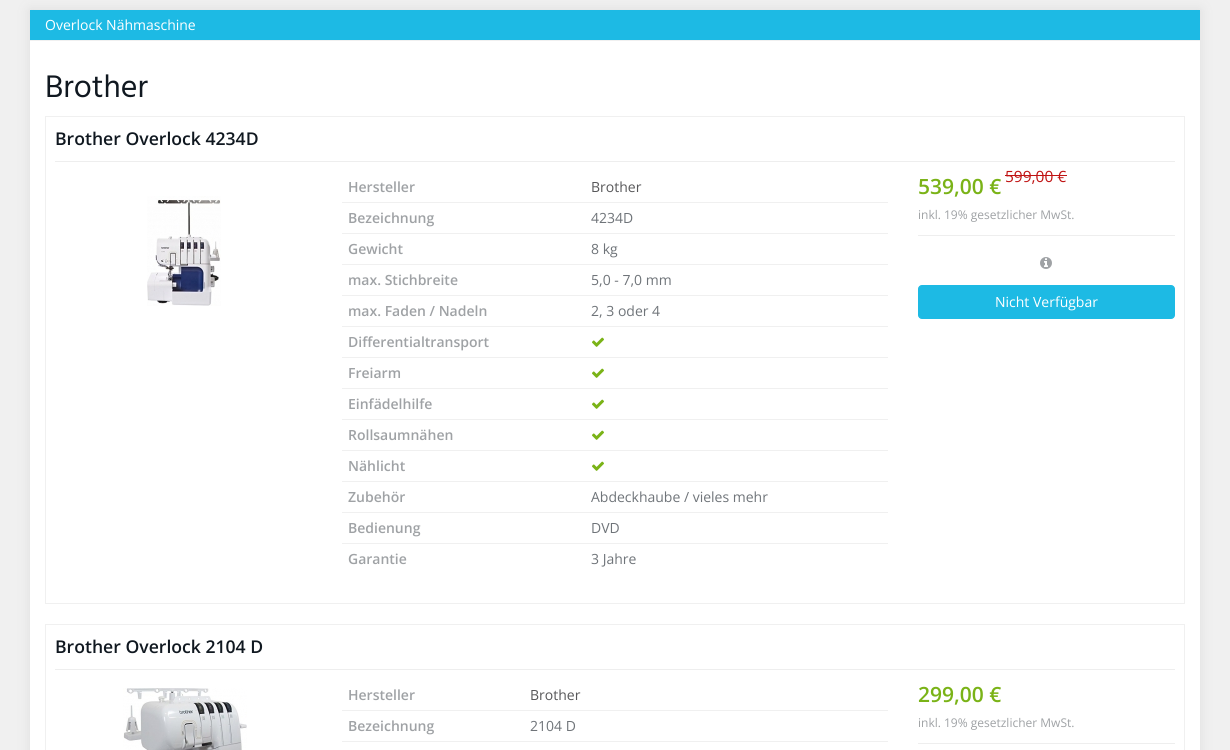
import math
import cairocffi as cairo

surface = cairo.ImageSurface(cairo.FORMAT_RGB24, 1230, 750)
ctx = cairo.Context(surface)
options = cairo.FontOptions()
options.set_hint_metrics(cairo.HINT_METRICS_OFF)
options.set_hint_style(cairo.HINT_STYLE_NONE)
ctx.set_font_options(options)
ctx.set_miter_limit(4)


def rgb(r, g, b):
    ctx.set_source_rgb(r / 255, g / 255, b / 255)


def face(family, size, italic, bold):
    ctx.select_font_face(family, cairo.FONT_SLANT_ITALIC if italic else cairo.FONT_SLANT_NORMAL, cairo.FONT_WEIGHT_BOLD if bold else cairo.FONT_WEIGHT_NORMAL)
    ctx.set_font_size(size)


def label(x, y, s):
    ctx.move_to(x, y)
    ctx.show_text(s)


def rect(x, y, w, h):
    ctx.rectangle(x, y, w, h)
    ctx.fill()


def rrect(x, y, w, h, r):
    ctx.new_sub_path()
    for i, (u, v) in enumerate([(x + w - r, y + h - r), (x + r, y + h - r), (x + r, y + r), (x + w - r, y + r)]):
        ctx.arc(u, v, r, i * math.pi / 2, (i + 1) * math.pi / 2)
    ctx.close_path()


def soft_shadow(x, y, w, h, r, blur, alpha):
    ctx.push_group_with_content(cairo.CONTENT_ALPHA)
    ctx.set_operator(cairo.OPERATOR_SOURCE)
    for i in range(15, -16, -2):
        e = blur * i / 6
        if min(w, h) + 2 * e > 0:
            ctx.set_source_rgba(0, 0, 0, alpha * math.erfc((i - 1) / 8.5) / 2)
            rrect(x - e, y - e, w + 2 * e, h + 2 * e, max(0, min(r + e + blur * .6, min(w, h) / 2 + e)))
            ctx.fill()
    ctx.mask(ctx.pop_group())


def image(path, x, y, w, h):
    ctx.save()
    ctx.set_source_surface(cairo.ImageSurface.create_from_png(path), x, y)
    ctx.rectangle(x, y, w, h)
    ctx.fill()
    ctx.restore()


rgb(240, 240, 240)
ctx.paint()
rgb(221, 221, 221)
soft_shadow(30, 10, 1170, 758, 0, 6, 1)
rgb(255, 255, 255)
rect(30, 41, 1170, 709)
rgb(29, 186, 228)
rect(30, 10, 1170, 30)
rgb(240, 240, 240)
rect(30, 40, 1170, 1)
face('Open Sans', 14, 0, 0)
rgb(255, 255, 255)
label(45, 30, 'Overlock Nähmaschine')
face('Hind', 32, 0, 0)
rgb(16, 24, 32)
label(45, 97, 'Brother')
ctx.rectangle(45.5, 116.5, 1139, 487)
rgb(240, 240, 240)
ctx.set_line_width(1)
ctx.stroke()
face('Open Sans SemiBold', 17.6, 0, 0)
rgb(16, 24, 32)
label(55, 145, 'Brother Overlock 4234D')
rgb(238, 238, 238)
rect(55, 161, 1120, 1)
image('image0.png', 147, 196, 74, 110)
face('Open Sans SemiBold', 14, 0, 0)
rgb(159, 162, 165)
label(348, 192, 'Hersteller')
face('Open Sans', 14, 0, 0)
rgb(87, 87, 89)
label(591, 192, 'Brother')
face('Open Sans SemiBold', 14, 0, 0)
rgb(159, 162, 165)
label(348, 223, 'Bezeichnung')
rgb(240, 240, 240)
rect(342, 202, 546, 1)
face('Open Sans', 14, 0, 0)
rgb(111, 116, 121)
label(591, 223, '4234D')
face('Open Sans SemiBold', 14, 0, 0)
rgb(159, 162, 165)
label(348, 254, 'Gewicht')
rgb(240, 240, 240)
rect(342, 233, 546, 1)
face('Open Sans', 14, 0, 0)
rgb(111, 116, 121)
label(591, 254, '8 kg')
face('Open Sans SemiBold', 14, 0, 0)
rgb(159, 162, 165)
label(348, 285, 'max. Stichbreite')
rgb(240, 240, 240)
rect(342, 264, 546, 1)
face('Open Sans', 14, 0, 0)
rgb(111, 116, 121)
label(591, 285, '5,0 - 7,0 mm')
face('Open Sans SemiBold', 14, 0, 0)
rgb(159, 162, 165)
label(348, 316, 'max. Faden / Nadeln')
rgb(240, 240, 240)
rect(342, 295, 546, 1)
face('Open Sans', 14, 0, 0)
rgb(111, 116, 121)
label(591, 316, '2, 3 oder 4')
rgb(240, 240, 240)
rect(342, 326, 546, 1)
image('image1.png', 592, 337, 12, 10)
face('Open Sans SemiBold', 14, 0, 0)
rgb(159, 162, 165)
label(348, 347, 'Differentialtransport')
rgb(240, 240, 240)
rect(342, 357, 546, 1)
image('image1.png', 592, 368, 12, 10)
rgb(159, 162, 165)
label(348, 378, 'Freiarm')
rgb(240, 240, 240)
rect(342, 388, 546, 1)
image('image1.png', 592, 399, 12, 10)
rgb(159, 162, 165)
label(348, 409, 'Einfädelhilfe')
rgb(240, 240, 240)
rect(342, 419, 546, 1)
image('image1.png', 592, 430, 12, 10)
rgb(159, 162, 165)
label(348, 440, 'Rollsaumnähen')
rgb(240, 240, 240)
rect(342, 450, 546, 1)
image('image1.png', 592, 461, 12, 10)
rgb(159, 162, 165)
label(348, 471, 'Nählicht')
label(348, 502, 'Zubehör')
rgb(240, 240, 240)
rect(342, 481, 546, 1)
face('Open Sans', 14, 0, 0)
rgb(111, 116, 121)
label(591, 502, 'Abdeckhaube / vieles mehr')
face('Open Sans SemiBold', 14, 0, 0)
rgb(159, 162, 165)
label(348, 533, 'Bedienung')
rgb(240, 240, 240)
rect(342, 512, 546, 1)
face('Open Sans', 14, 0, 0)
rgb(111, 116, 121)
label(591, 533, 'DVD')
face('Open Sans SemiBold', 14, 0, 0)
rgb(159, 162, 165)
label(348, 564, 'Garantie')
rgb(240, 240, 240)
rect(342, 543, 546, 1)
face('Open Sans', 14, 0, 0)
rgb(111, 116, 121)
label(591, 564, '3 Jahre')
face('Open Sans SemiBold', 21, 0, 0)
rgb(122, 179, 23)
label(918, 194, '539,00 €')
face('Open Sans', 15.5, 0, 0)
rgb(192, 19, 19)
label(1005, 182, '599,00 €')
rect(1005, 175, 62, 1)
face('Open Sans', 12, 0, 0)
rgb(159, 162, 165)
label(918, 219, 'inkl. 19% gesetzlicher MwSt.')
rgb(238, 238, 238)
rect(918, 235, 257, 1)
image('image2.png', 1040, 257, 12, 12)
rgb(29, 186, 228)
rrect(918.5, 285.5, 256, 33, 3.5)
ctx.fill_preserve()
ctx.stroke()
face('Open Sans', 14, 0, 0)
rgb(255, 255, 255)
label(995, 307, 'Nicht Verfügbar')
ctx.rectangle(45.5, 624.5, 1139, 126)
rgb(240, 240, 240)
ctx.stroke()
face('Open Sans SemiBold', 17.6, 0, 0)
rgb(16, 24, 32)
label(55, 653, 'Brother Overlock 2104 D')
rgb(238, 238, 238)
rect(55, 669, 1120, 1)
image('image3.png', 123, 688, 124, 62)
face('Open Sans SemiBold', 14, 0, 0)
rgb(159, 162, 165)
label(348, 700, 'Hersteller')
face('Open Sans', 14, 0, 0)
rgb(87, 87, 89)
label(530, 700, 'Brother')
face('Open Sans SemiBold', 14, 0, 0)
rgb(159, 162, 165)
label(348, 731, 'Bezeichnung')
rgb(240, 240, 240)
rect(342, 710, 546, 1)
face('Open Sans', 14, 0, 0)
rgb(111, 116, 121)
label(530, 731, '2104 D')
rgb(240, 240, 240)
rect(342, 741, 546, 1)
face('Open Sans SemiBold', 21, 0, 0)
rgb(122, 179, 23)
label(918, 702, '299,00 €')
face('Open Sans', 12, 0, 0)
rgb(159, 162, 165)
label(918, 727, 'inkl. 19% gesetzlicher MwSt.')
rgb(238, 238, 238)
rect(918, 743, 257, 1)
surface.write_to_png('render.png')
